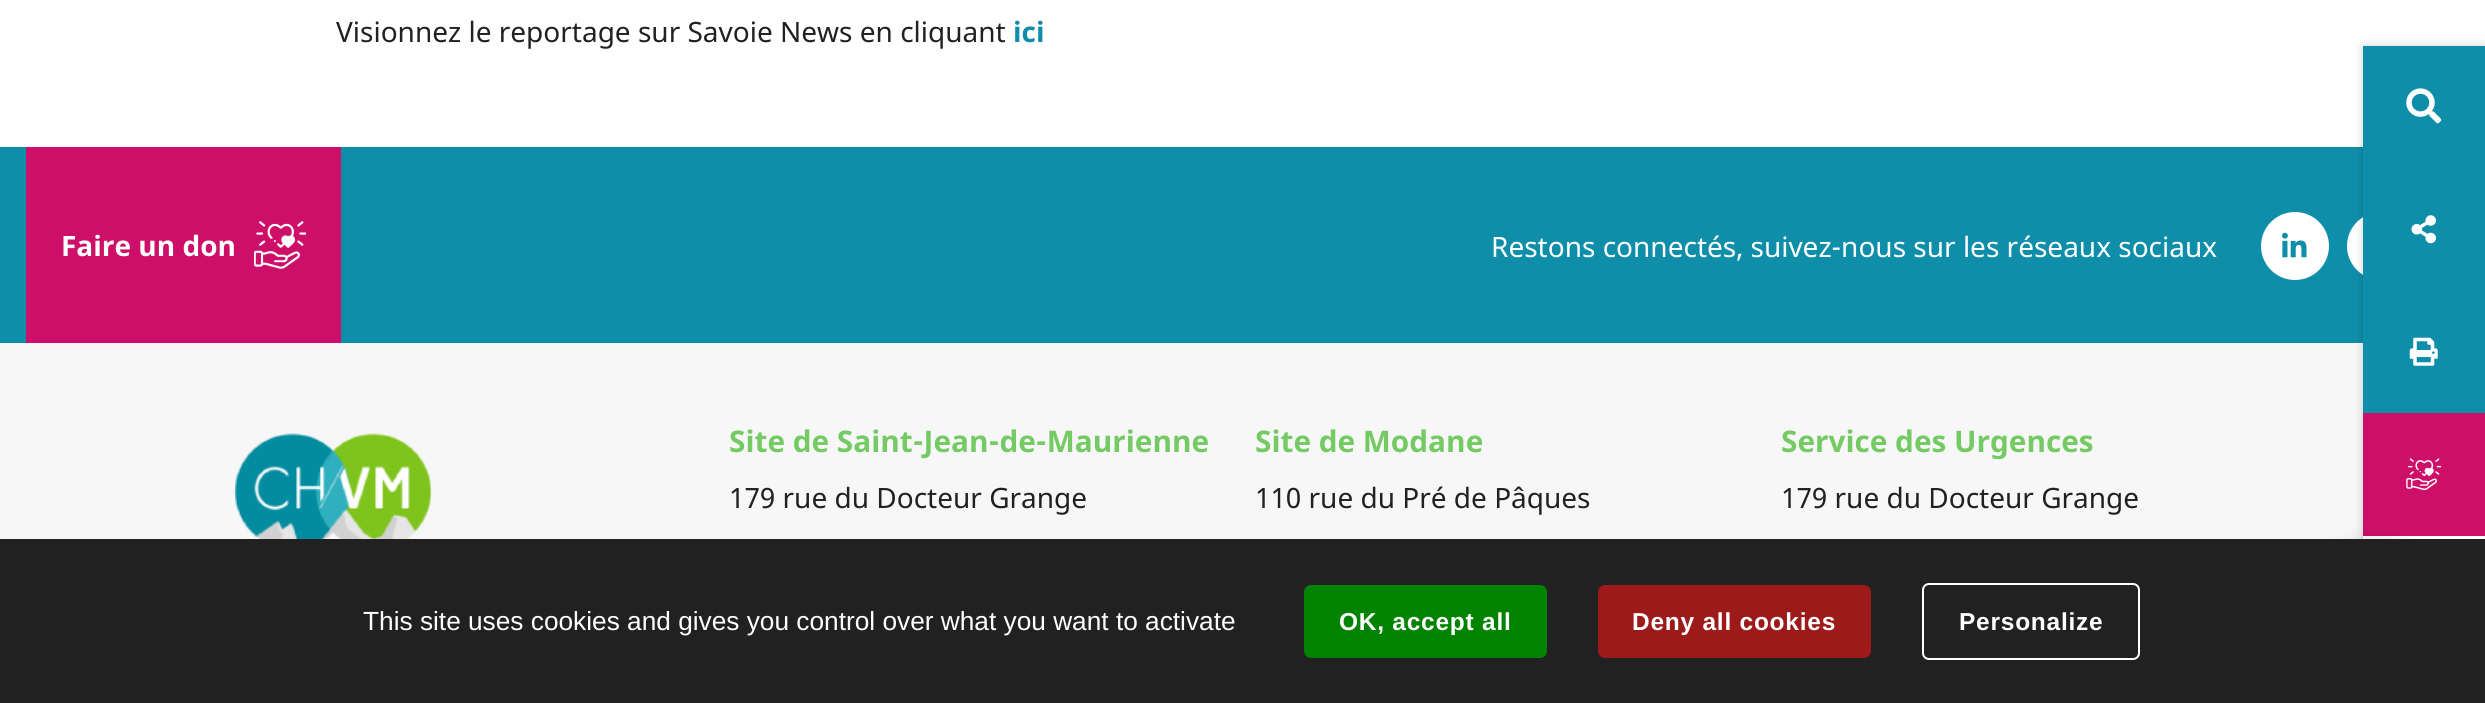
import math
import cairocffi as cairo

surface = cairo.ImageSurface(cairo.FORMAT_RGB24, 2485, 703)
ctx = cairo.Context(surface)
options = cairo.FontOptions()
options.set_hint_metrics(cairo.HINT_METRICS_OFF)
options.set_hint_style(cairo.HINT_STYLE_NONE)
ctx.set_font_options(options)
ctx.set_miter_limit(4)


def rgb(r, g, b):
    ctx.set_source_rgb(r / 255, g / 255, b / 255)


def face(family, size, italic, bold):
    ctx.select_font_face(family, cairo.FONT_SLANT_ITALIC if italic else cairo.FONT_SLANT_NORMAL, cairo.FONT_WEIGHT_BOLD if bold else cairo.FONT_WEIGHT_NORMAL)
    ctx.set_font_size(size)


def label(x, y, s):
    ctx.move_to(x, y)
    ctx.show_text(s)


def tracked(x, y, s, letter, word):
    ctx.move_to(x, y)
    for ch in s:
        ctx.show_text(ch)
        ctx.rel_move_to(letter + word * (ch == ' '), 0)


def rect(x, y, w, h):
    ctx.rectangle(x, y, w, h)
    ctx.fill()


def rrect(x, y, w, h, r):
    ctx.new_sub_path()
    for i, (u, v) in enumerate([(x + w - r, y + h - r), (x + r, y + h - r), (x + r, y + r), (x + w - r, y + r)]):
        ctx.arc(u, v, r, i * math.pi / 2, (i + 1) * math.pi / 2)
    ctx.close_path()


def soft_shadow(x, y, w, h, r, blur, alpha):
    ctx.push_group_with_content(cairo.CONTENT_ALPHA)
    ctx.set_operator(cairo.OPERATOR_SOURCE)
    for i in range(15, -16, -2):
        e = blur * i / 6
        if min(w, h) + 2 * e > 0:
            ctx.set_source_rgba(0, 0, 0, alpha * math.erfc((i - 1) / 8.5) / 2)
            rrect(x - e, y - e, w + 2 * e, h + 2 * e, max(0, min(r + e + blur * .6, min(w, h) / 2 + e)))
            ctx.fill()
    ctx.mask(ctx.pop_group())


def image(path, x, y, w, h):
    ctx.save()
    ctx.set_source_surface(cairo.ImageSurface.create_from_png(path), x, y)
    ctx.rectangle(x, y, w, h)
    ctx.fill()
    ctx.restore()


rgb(255, 255, 255)
ctx.paint()
face('Noto Sans', 28, 0, 0)
rgb(33, 33, 33)
label(336, 42, 'Visionnez le reportage sur Savoie News en cliquant')
face('Noto Sans', 28, 0, 1)
rgb(15, 142, 169)
label(1013, 42, 'ici')
rgb(247, 247, 247)
rect(0, 343, 2363, 196)
rgb(15, 142, 169)
rect(0, 147, 2363, 196)
rgb(255, 255, 255)
ctx.new_path()
ctx.arc(2381, 246, 32, 0, 2 * math.pi)
ctx.fill_preserve()
ctx.set_line_width(4)
ctx.stroke()
rgb(0, 0, 0)
soft_shadow(2363, 46, 122, 612, 0, 4.5, 0.18)
rgb(15, 142, 169)
rect(2363, 46, 122, 367)
image('image0.png', 2406, 88, 36, 36)
image('image1.png', 2411, 215, 25, 29)
image('image2.png', 2409, 337, 29, 29)
rgb(206, 15, 105)
rect(2363, 413, 122, 123)
image('image3.png', 2406, 458, 35, 33)
rgb(255, 255, 255)
rect(2363, 536, 122, 3)
rgb(206, 15, 105)
rect(26, 147, 315, 196)
rgb(255, 255, 255)
label(61, 256, 'Faire un don')
image('image4.png', 254, 221, 52, 48)
face('Noto Sans', 28, 0, 0)
label(1491, 257, 'Restons connectés, suivez-nous sur les réseaux sociaux')
ctx.new_path()
ctx.arc(2295, 246, 32, 0, 2 * math.pi)
ctx.fill_preserve()
ctx.stroke()
image('image5.png', 2282, 232, 25, 26)
image('image6.png', 233, 433, 200, 106)
face('Noto Sans', 29.75, 0, 1)
rgb(116, 202, 99)
label(729, 452, 'Site de Saint-Jean-de-Maurienne')
face('Noto Sans', 28, 0, 0)
rgb(33, 33, 33)
label(729, 508, '179 rue du Docteur Grange')
face('Noto Sans', 29.75, 0, 1)
rgb(116, 202, 99)
label(1255, 452, 'Site de Modane')
face('Noto Sans', 28, 0, 0)
rgb(33, 33, 33)
label(1255, 508, '110 rue du Pré de Pâques')
face('Noto Sans', 29.75, 0, 1)
rgb(116, 202, 99)
label(1781, 452, 'Service des Urgences')
face('Noto Sans', 28, 0, 0)
rgb(33, 33, 33)
label(1781, 508, '179 rue du Docteur Grange')
rgb(0, 0, 0)
soft_shadow(2333, 551, 84, 84, 42, 14, 0.3)
rgb(33, 33, 33)
rect(0, 539, 2485, 164)
face('Liberation Sans', 26.25, 0, 0)
rgb(255, 255, 255)
label(363, 630, 'This site uses cookies and gives you control over what you want to activate')
rgb(0, 131, 0)
rrect(1304, 585, 243, 73, 7)
ctx.fill()
face('Liberation Sans', 24.5, 0, 1)
rgb(255, 255, 255)
tracked(1339, 630, 'OK, accept all', 0.75, 0)
rgb(156, 26, 26)
rrect(1598, 585, 273, 73, 7)
ctx.fill()
rgb(255, 255, 255)
tracked(1632, 630, 'Deny all cookies', 0.75, 0)
rrect(1923, 584, 216, 75, 6)
ctx.set_line_width(2)
ctx.stroke()
tracked(1959, 630, 'Personalize', 0.75, 0)
surface.write_to_png('render.png')
